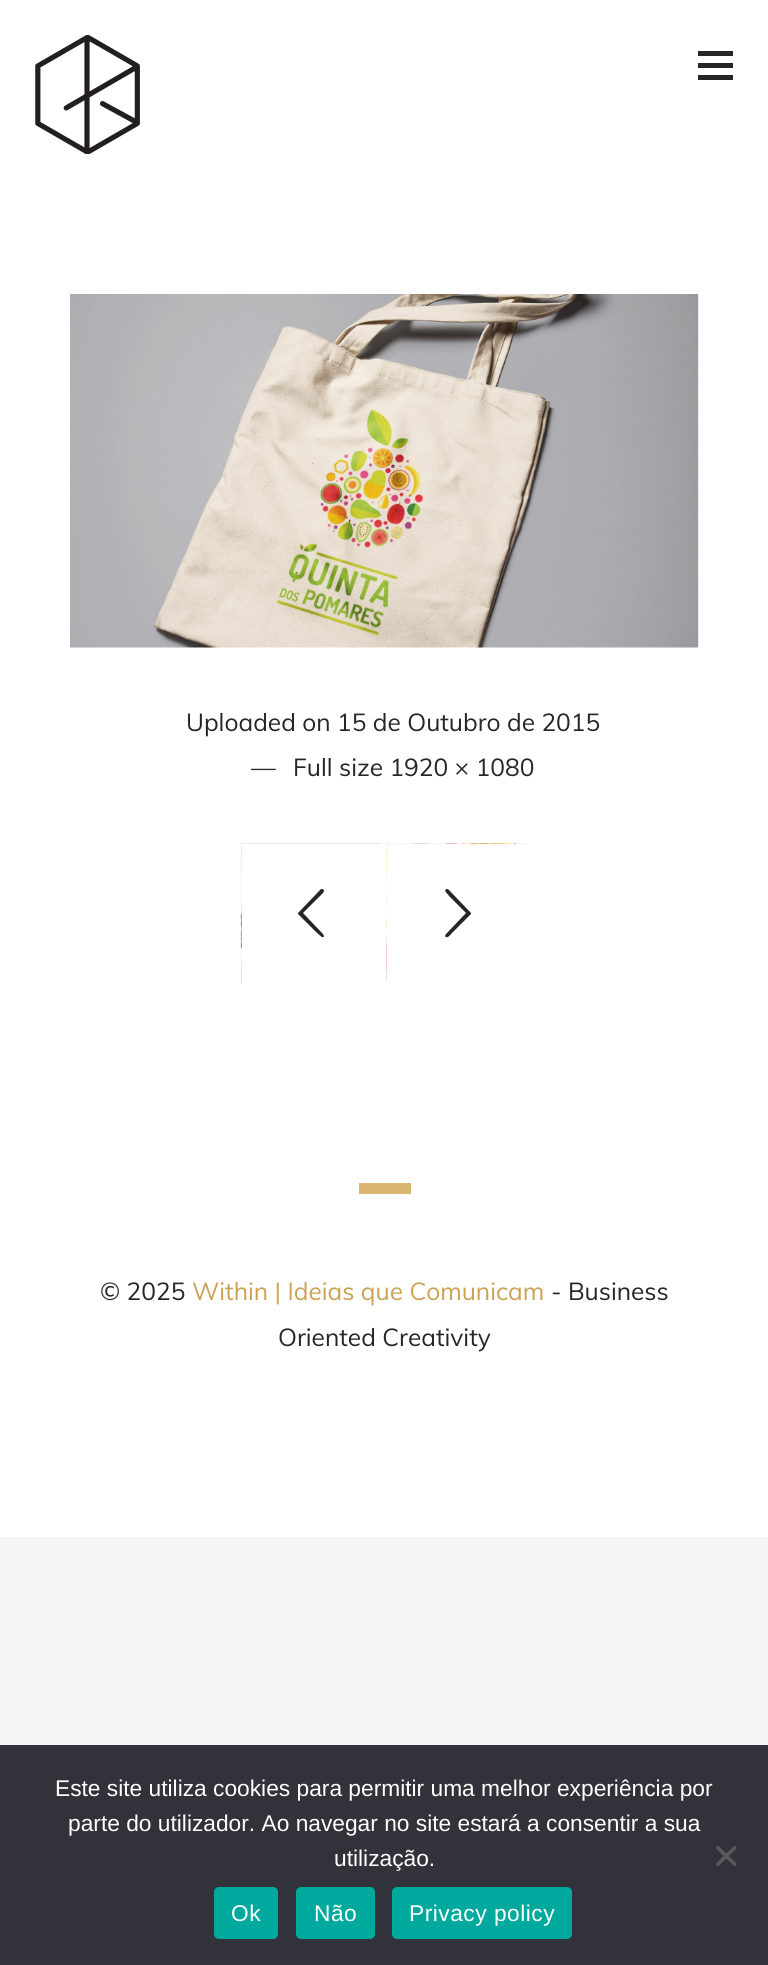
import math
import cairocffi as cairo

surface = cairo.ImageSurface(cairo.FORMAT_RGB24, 768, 1965)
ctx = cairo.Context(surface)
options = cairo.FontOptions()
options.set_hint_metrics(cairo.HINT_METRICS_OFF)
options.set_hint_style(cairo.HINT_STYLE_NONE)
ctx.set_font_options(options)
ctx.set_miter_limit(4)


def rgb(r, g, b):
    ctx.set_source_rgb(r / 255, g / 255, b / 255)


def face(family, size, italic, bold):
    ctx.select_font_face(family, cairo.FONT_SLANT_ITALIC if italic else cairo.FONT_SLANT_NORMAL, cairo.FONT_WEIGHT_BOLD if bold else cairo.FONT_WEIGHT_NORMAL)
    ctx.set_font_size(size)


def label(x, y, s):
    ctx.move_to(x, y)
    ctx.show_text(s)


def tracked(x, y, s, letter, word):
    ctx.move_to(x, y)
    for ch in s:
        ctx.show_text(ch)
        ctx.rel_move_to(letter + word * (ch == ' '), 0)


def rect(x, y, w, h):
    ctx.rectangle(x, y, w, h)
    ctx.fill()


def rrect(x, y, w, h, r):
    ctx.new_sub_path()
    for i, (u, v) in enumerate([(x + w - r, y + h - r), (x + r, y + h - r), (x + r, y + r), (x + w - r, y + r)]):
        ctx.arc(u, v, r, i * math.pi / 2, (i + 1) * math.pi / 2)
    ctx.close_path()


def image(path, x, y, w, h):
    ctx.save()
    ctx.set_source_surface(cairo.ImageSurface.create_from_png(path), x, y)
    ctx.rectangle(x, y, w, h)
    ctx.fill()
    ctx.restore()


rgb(245, 245, 245)
ctx.paint()
rgb(255, 255, 255)
rect(0, 0, 768, 1537)
image('image0.png', 35, 35, 105, 119)
rgb(38, 38, 38)
rect(698, 63, 35, 5)
rect(698, 51, 35, 5)
rect(698, 75, 35, 5)
image('image1.png', 70, 294, 629, 354)
face('Muli', 24.5, 0, 0)
label(186, 731, 'Uploaded on 15 de Outubro de 2015')
label(251, 776, '—')
label(293, 776, 'Full size 1920 × 1080')
image('image2.png', 240, 843, 142, 141)
rgb(255, 255, 255)
rect(242, 844, 140, 140)
rgb(38, 38, 38)
ctx.new_path()
ctx.move_to(323, 934)
ctx.line_to(324, 936)
ctx.curve_to(323, 940, 318, 933, 317, 933)
ctx.line_to(298, 914)
ctx.line_to(298, 913)
ctx.line_to(321, 889)
ctx.line_to(322, 889)
ctx.curve_to(327, 890, 321, 895, 320, 896)
ctx.line_to(303, 913)
ctx.close_path()
ctx.fill()
image('image3.png', 386, 843, 141, 141)
rgb(255, 255, 255)
rect(387, 844, 140, 140)
rgb(38, 38, 38)
ctx.new_path()
ctx.move_to(446, 934)
ctx.line_to(466, 913)
ctx.line_to(449, 896)
ctx.curve_to(449, 895, 442, 890, 447, 889)
ctx.line_to(448, 889)
ctx.line_to(471, 913)
ctx.line_to(471, 914)
ctx.line_to(452, 933)
ctx.curve_to(452, 933, 447, 940, 445, 936)
ctx.close_path()
ctx.fill()
rgb(219, 182, 114)
rect(359, 1183, 52, 11)
rgb(38, 38, 38)
label(100, 1300, '© 2025')
rgb(204, 161, 82)
label(192, 1300, 'Within | Ideias que Comunicam')
rgb(38, 38, 38)
label(551, 1300, '- Business')
label(278, 1346, 'Oriented Creativity')
rgb(50, 50, 58)
rect(0, 1745, 768, 220)
face('Liberation Sans', 22.75, 0, 0)
rgb(255, 255, 255)
label(55, 1796, 'Este site utiliza cookies para permitir uma melhor experiência por')
label(68, 1831, 'parte do utilizador. Ao navegar no site estará a consentir a sua')
label(334, 1866, 'utilização.')
rgb(89, 89, 93)
ctx.new_path()
ctx.move_to(734.5, 1845.5)
ctx.line_to(737, 1848)
ctx.line_to(718, 1866.5)
ctx.line_to(715.5, 1864)
ctx.close_path()
ctx.fill()
ctx.new_path()
ctx.move_to(715.5, 1848)
ctx.line_to(718, 1845.5)
ctx.line_to(737, 1864)
ctx.line_to(734.5, 1866.5)
ctx.close_path()
ctx.fill()
rgb(0, 169, 157)
rrect(214, 1887, 64, 52, 5)
ctx.fill()
rgb(255, 255, 255)
tracked(231, 1921, 'Ok', 0.5, 0)
rgb(0, 169, 157)
rrect(296, 1887, 79, 52, 5)
ctx.fill()
rgb(255, 255, 255)
tracked(314, 1921, 'Não', 0.5, 0)
rgb(0, 169, 157)
rrect(392, 1887, 180, 52, 5)
ctx.fill()
rgb(255, 255, 255)
tracked(409, 1921, 'Privacy policy', 0.5, 0)
surface.write_to_png('render.png')
